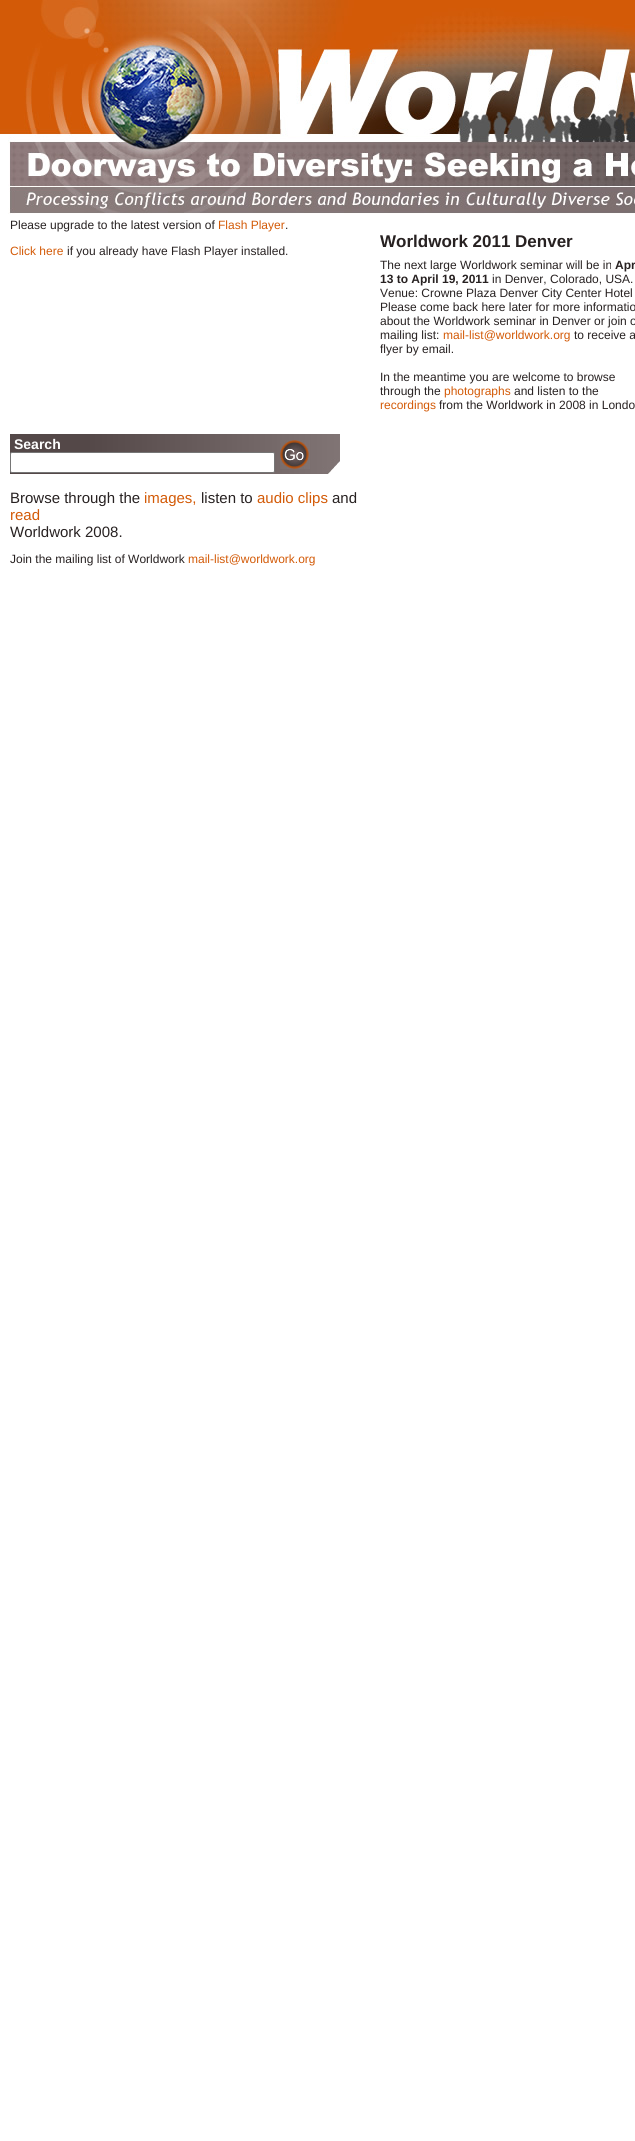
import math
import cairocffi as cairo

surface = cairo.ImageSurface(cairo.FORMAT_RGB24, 635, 2141)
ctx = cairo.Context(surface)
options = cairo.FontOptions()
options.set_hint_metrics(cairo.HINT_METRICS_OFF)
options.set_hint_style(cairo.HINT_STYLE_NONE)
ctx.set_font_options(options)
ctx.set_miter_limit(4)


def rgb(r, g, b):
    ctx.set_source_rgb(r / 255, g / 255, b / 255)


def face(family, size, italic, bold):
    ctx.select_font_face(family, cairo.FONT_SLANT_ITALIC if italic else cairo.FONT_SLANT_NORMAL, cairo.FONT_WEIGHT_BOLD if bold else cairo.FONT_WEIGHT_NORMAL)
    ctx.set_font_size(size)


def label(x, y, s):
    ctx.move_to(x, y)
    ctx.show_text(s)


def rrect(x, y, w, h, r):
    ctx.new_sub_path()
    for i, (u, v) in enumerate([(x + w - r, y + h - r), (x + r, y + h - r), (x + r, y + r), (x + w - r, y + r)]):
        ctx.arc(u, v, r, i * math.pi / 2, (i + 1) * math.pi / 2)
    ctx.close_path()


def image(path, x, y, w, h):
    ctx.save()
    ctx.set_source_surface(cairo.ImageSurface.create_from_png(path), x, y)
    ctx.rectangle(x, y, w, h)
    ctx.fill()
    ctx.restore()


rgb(255, 255, 255)
ctx.paint()
image('image0.png', 0, 0, 635, 214)
face('Liberation Sans', 12, 0, 0)
rgb(39, 33, 33)
label(10, 229, 'Please upgrade to the latest version of')
rgb(211, 90, 7)
label(218, 229, 'Flash Player')
rgb(39, 33, 33)
label(285, 229, '.')
rgb(211, 90, 7)
label(10, 255, 'Click here')
rgb(39, 33, 33)
label(67, 255, 'if you already have Flash Player installed.')
image('image1.png', 10, 434, 330, 40)
face('Liberation Sans', 14, 0, 1)
rgb(255, 255, 255)
label(14, 449, 'Search')
rrect(10.5, 452.5, 264, 20, 1.5)
ctx.fill_preserve()
rgb(118, 118, 118)
ctx.set_line_width(1)
ctx.stroke()
image('image2.png', 280, 440, 30, 29)
face('Liberation Sans', 17, 0, 1)
rgb(39, 33, 33)
label(380, 247, 'Worldwork 2011 Denver')
face('Liberation Sans', 12, 0, 0)
label(380, 269, 'The next large Worldwork seminar will be in')
face('Liberation Sans', 12, 0, 1)
label(615, 269, 'Apr')
label(380, 283, '13 to April 19, 2011')
face('Liberation Sans', 12, 0, 0)
label(492, 283, 'in Denver, Colorado, USA.')
label(380, 297, 'Venue: Crowne Plaza Denver City Center Hotel')
label(380, 311, 'Please come back here later for more informatio')
label(380, 325, 'about the Worldwork seminar in Denver or join o')
label(380, 339, 'mailing list:')
rgb(211, 90, 7)
label(443, 339, 'mail-list@worldwork.org')
rgb(39, 33, 33)
label(574, 339, 'to receive a')
label(380, 353, 'flyer by email.')
label(380, 381, 'In the meantime you are welcome to browse')
label(380, 395, 'through the')
rgb(211, 90, 7)
label(444, 395, 'photographs')
rgb(39, 33, 33)
label(514, 395, 'and listen to the')
rgb(211, 90, 7)
label(380, 409, 'recordings')
rgb(39, 33, 33)
label(439, 409, 'from the Worldwork in 2008 in Londo')
face('Liberation Sans', 15, 0, 0)
label(10, 503, 'Browse through the')
rgb(211, 90, 7)
label(144, 503, 'images,')
rgb(39, 33, 33)
label(201, 503, 'listen to')
rgb(211, 90, 7)
label(257, 503, 'audio clips')
rgb(39, 33, 33)
label(332, 503, 'and')
rgb(211, 90, 7)
label(10, 520, 'read')
rgb(39, 33, 33)
label(10, 537, 'Worldwork 2008.')
face('Liberation Sans', 12, 0, 0)
label(10, 563, 'Join the mailing list of Worldwork')
rgb(211, 90, 7)
label(188, 563, 'mail-list@worldwork.org')
surface.write_to_png('render.png')
